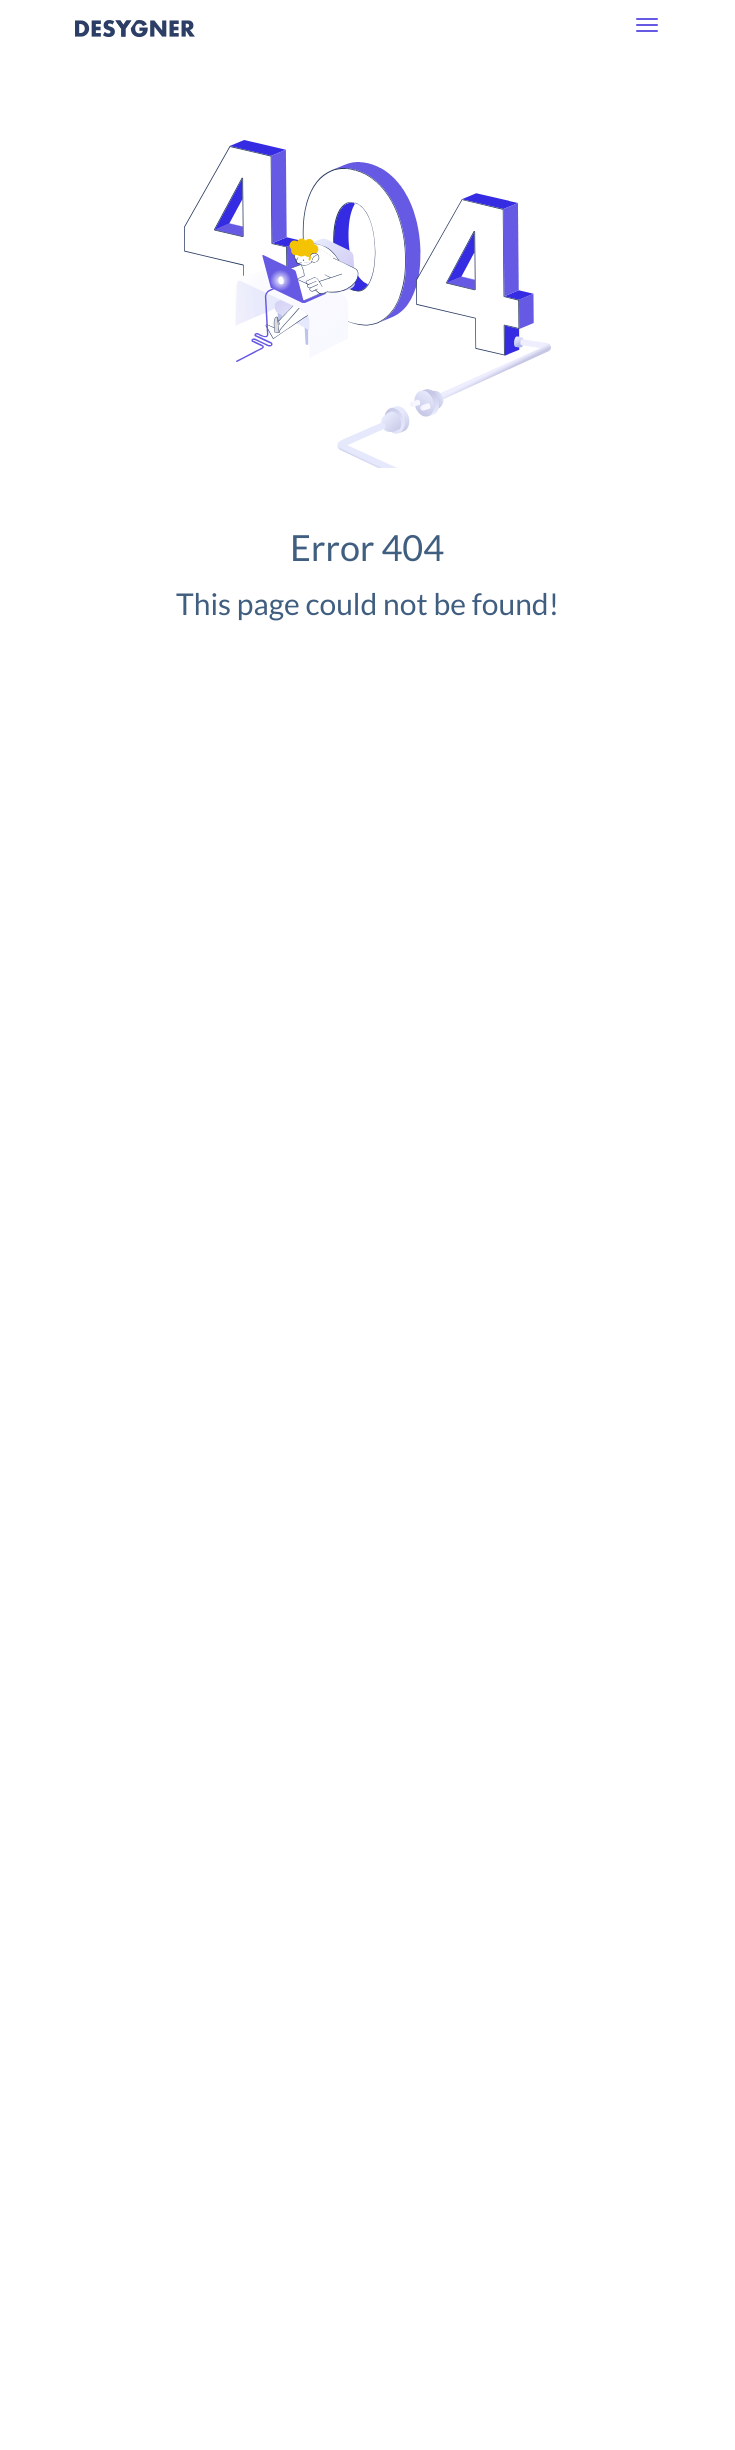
import math
import cairocffi as cairo

surface = cairo.ImageSurface(cairo.FORMAT_RGB24, 735, 2450)
ctx = cairo.Context(surface)
options = cairo.FontOptions()
options.set_hint_metrics(cairo.HINT_METRICS_OFF)
options.set_hint_style(cairo.HINT_STYLE_NONE)
ctx.set_font_options(options)
ctx.set_miter_limit(4)


def rgb(r, g, b):
    ctx.set_source_rgb(r / 255, g / 255, b / 255)


def face(family, size, italic, bold):
    ctx.select_font_face(family, cairo.FONT_SLANT_ITALIC if italic else cairo.FONT_SLANT_NORMAL, cairo.FONT_WEIGHT_BOLD if bold else cairo.FONT_WEIGHT_NORMAL)
    ctx.set_font_size(size)


def label(x, y, s):
    ctx.move_to(x, y)
    ctx.show_text(s)


def rrect(x, y, w, h, r):
    ctx.new_sub_path()
    for i, (u, v) in enumerate([(x + w - r, y + h - r), (x + r, y + h - r), (x + r, y + r), (x + w - r, y + r)]):
        ctx.arc(u, v, r, i * math.pi / 2, (i + 1) * math.pi / 2)
    ctx.close_path()


def image(path, x, y, w, h):
    ctx.save()
    ctx.set_source_surface(cairo.ImageSurface.create_from_png(path), x, y)
    ctx.rectangle(x, y, w, h)
    ctx.fill()
    ctx.restore()


rgb(255, 255, 255)
ctx.paint()
image('image0.png', 75, 20, 120, 17)
rgb(102, 89, 227)
rrect(636, 18, 22, 2, 1)
ctx.fill()
rrect(636, 24, 22, 2, 1)
ctx.fill()
rrect(636, 30, 22, 2, 1)
ctx.fill()
image('image1.png', 184, 140, 367, 328)
face('Lato', 36, 0, 0)
rgb(64, 94, 127)
label(290, 561, 'Error 404')
face('Lato', 30, 0, 0)
label(176, 615, 'This page could not be found!')
surface.write_to_png('render.png')
